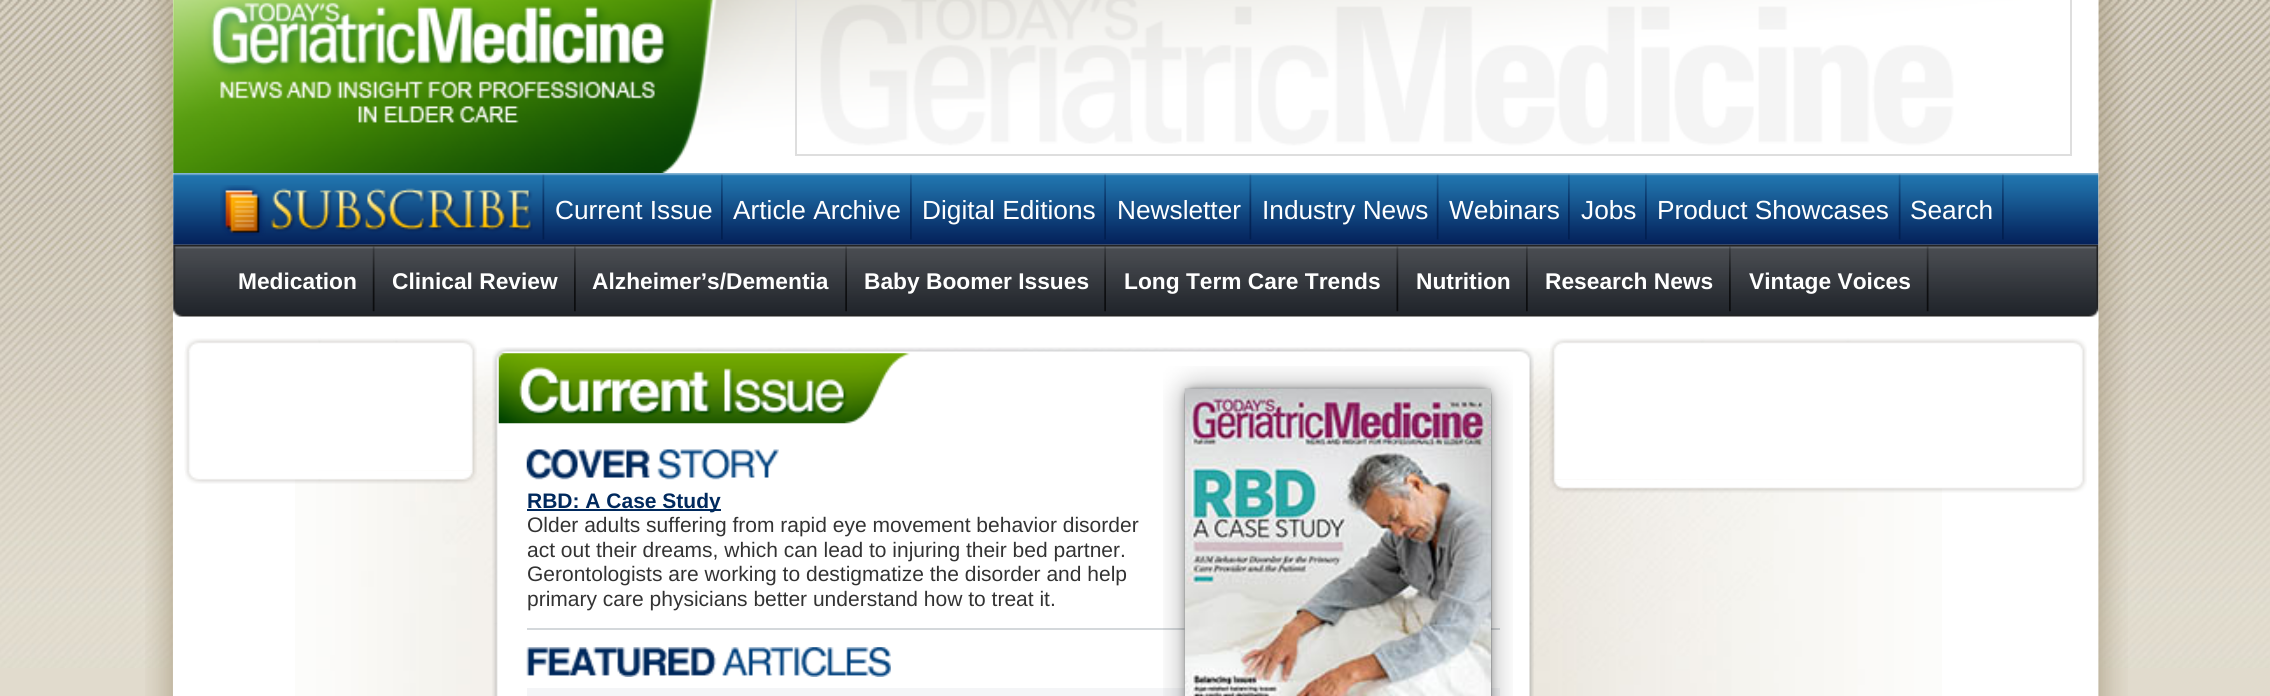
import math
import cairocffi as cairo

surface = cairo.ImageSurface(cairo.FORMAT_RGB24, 2270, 696)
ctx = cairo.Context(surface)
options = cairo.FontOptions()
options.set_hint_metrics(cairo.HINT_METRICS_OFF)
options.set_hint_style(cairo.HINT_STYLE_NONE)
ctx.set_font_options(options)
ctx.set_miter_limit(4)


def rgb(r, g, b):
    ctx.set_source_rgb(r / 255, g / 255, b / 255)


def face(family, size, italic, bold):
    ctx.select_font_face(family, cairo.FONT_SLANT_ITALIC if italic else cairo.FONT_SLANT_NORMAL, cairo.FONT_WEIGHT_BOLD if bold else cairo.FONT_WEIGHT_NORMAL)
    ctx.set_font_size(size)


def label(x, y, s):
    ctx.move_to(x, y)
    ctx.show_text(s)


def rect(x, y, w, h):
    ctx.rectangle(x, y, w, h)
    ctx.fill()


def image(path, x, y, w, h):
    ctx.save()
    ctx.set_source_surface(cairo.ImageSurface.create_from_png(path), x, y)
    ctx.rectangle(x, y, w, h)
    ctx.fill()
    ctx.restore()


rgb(225, 219, 205)
ctx.paint()
image('image0.png', 0, 0, 2270, 668)
image('image1.png', 145, 0, 1983, 696)
rgb(255, 255, 255)
rect(173, 0, 1925, 696)
image('image2.png', 295, 348, 1647, 348)
image('image3.png', 173, 0, 1926, 173)
ctx.rectangle(796, -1, 1275, 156)
rgb(222, 222, 222)
ctx.stroke()
image('image4.png', 173, 173, 1926, 72)
image('image5.png', 542, 174, 3, 66)
image('image6.png', 220, 185, 313, 51)
image('image7.png', 721, 174, 2, 66)
face('Liberation Sans', 26.25, 0, 0)
rgb(255, 255, 255)
label(555, 219, 'Current Issue')
image('image7.png', 910, 174, 2, 66)
label(733, 219, 'Article Archive')
image('image8.png', 1104, 174, 2, 66)
label(922, 219, 'Digital Editions')
image('image5.png', 1249, 174, 3, 66)
label(1117, 219, 'Newsletter')
image('image9.png', 1436, 174, 3, 66)
label(1262, 219, 'Industry News')
image('image7.png', 1568, 174, 2, 66)
label(1449, 219, 'Webinars')
image('image7.png', 1645, 174, 2, 66)
label(1581, 219, 'Jobs')
image('image9.png', 1898, 174, 3, 66)
label(1657, 219, 'Product Showcases')
image('image7.png', 2002, 174, 2, 66)
label(1910, 219, 'Search')
image('image10.png', 173, 244, 1926, 85)
image('image11.png', 372, 246, 3, 66)
face('Liberation Sans', 22.75, 0, 1)
label(238, 289, 'Medication')
image('image12.png', 574, 246, 2, 66)
label(392, 289, 'Clinical Review')
image('image13.png', 845, 246, 2, 66)
label(592, 289, 'Alzheimer’s/Dementia')
image('image13.png', 1104, 246, 2, 66)
label(864, 289, 'Baby Boomer Issues')
image('image14.png', 1396, 246, 3, 66)
label(1124, 289, 'Long Term Care Trends')
image('image12.png', 1526, 246, 2, 66)
label(1416, 289, 'Nutrition')
image('image12.png', 1729, 246, 2, 66)
label(1545, 289, 'Research News')
image('image11.png', 1926, 246, 3, 66)
label(1749, 289, 'Vintage Voices')
image('image16.png', 184, 351, 293, 120)
image('image15.png', 185, 338, 292, 14)
image('image17.png', 185, 470, 292, 14)
image('image19.png', 1549, 351, 538, 129)
image('image18.png', 1550, 338, 537, 14)
image('image20.png', 1550, 479, 537, 14)
image('image21.png', 492, 347, 1042, 349)
image('image22.png', 498, 353, 412, 71)
rgb(212, 216, 219)
rect(527, 628, 973, 2)
rgb(244, 245, 247)
rect(527, 688, 973, 8)
image('image23.png', 1163, 366, 350, 330)
image('image24.png', 1184, 388, 307, 308)
image('image25.png', 526, 449, 253, 31)
rgb(0, 41, 93)
rect(527, 509, 194, 2)
face('Liberation Sans', 21, 0, 1)
label(527, 508, 'RBD: A Case Study')
face('Liberation Sans', 21, 0, 0)
rgb(51, 51, 51)
label(527, 532, 'Older adults suffering from rapid eye movement behavior disorder')
label(527, 557, 'act out their dreams, which can lead to injuring their bed partner.')
label(527, 581, 'Gerontologists are working to destigmatize the disorder and help')
label(527, 606, 'primary care physicians better understand how to treat it.')
image('image26.png', 526, 647, 365, 30)
surface.write_to_png('render.png')
